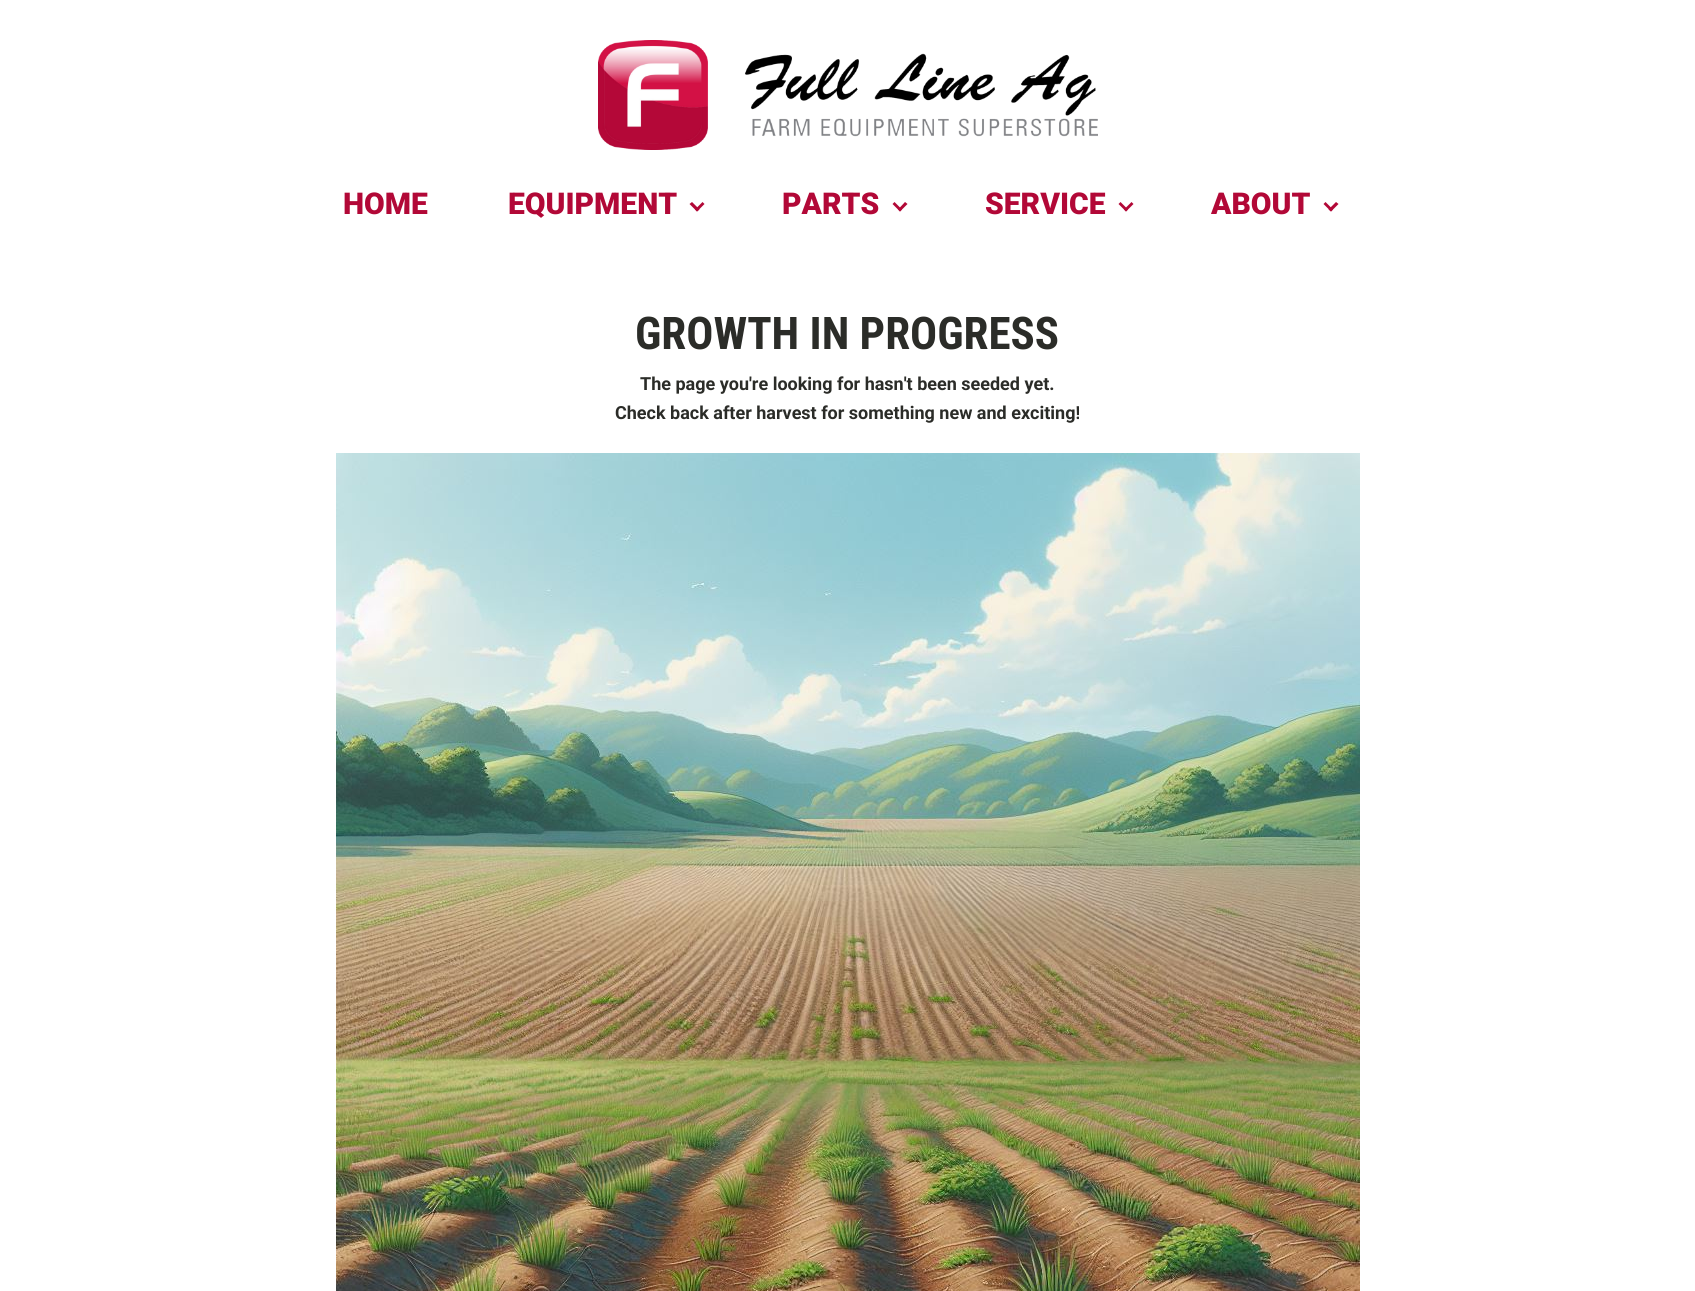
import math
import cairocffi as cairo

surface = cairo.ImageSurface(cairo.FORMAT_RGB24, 1695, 1291)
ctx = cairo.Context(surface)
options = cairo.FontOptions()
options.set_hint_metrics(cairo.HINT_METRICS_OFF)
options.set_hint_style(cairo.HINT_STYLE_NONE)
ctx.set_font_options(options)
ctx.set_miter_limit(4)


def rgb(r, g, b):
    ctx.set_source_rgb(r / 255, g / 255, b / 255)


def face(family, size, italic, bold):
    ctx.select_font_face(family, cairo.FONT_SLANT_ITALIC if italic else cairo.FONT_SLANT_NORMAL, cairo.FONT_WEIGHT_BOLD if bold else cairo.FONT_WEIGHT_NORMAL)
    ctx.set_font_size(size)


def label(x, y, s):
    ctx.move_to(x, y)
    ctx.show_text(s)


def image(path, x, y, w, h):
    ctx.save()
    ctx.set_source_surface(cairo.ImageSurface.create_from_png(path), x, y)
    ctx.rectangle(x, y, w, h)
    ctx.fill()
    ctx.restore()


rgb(255, 255, 255)
ctx.paint()
image('image0.png', 598, 40, 500, 110)
face('Roboto Black', 30, 0, 0)
rgb(178, 8, 55)
label(343, 214, 'HOME')
label(508, 214, 'EQUIPMENT')
ctx.new_path()
ctx.move_to(704.5, 204)
ctx.line_to(697, 211.5)
ctx.line_to(695, 209.5)
ctx.line_to(702.5, 202)
ctx.close_path()
ctx.fill()
ctx.new_path()
ctx.move_to(699.5, 209.5)
ctx.line_to(697, 211.5)
ctx.line_to(689.5, 204)
ctx.line_to(692, 202)
ctx.close_path()
ctx.fill()
label(782, 214, 'PARTS')
ctx.new_path()
ctx.move_to(907.5, 204)
ctx.line_to(900, 211.5)
ctx.line_to(898, 209.5)
ctx.line_to(905, 202)
ctx.close_path()
ctx.fill()
ctx.new_path()
ctx.move_to(902, 209.5)
ctx.line_to(900, 211.5)
ctx.line_to(892.5, 204)
ctx.line_to(894.5, 202)
ctx.close_path()
ctx.fill()
label(985, 214, 'SERVICE')
ctx.new_path()
ctx.move_to(1133.5, 204)
ctx.line_to(1126, 211.5)
ctx.line_to(1124, 209.5)
ctx.line_to(1131.5, 202)
ctx.close_path()
ctx.fill()
ctx.new_path()
ctx.move_to(1128, 209.5)
ctx.line_to(1126, 211.5)
ctx.line_to(1118.5, 204)
ctx.line_to(1120.5, 202)
ctx.close_path()
ctx.fill()
label(1211, 214, 'ABOUT')
ctx.new_path()
ctx.move_to(1338.5, 204)
ctx.line_to(1331, 211.5)
ctx.line_to(1328.5, 209.5)
ctx.line_to(1336, 202)
ctx.close_path()
ctx.fill()
ctx.new_path()
ctx.move_to(1333, 209.5)
ctx.line_to(1331, 211.5)
ctx.line_to(1323.5, 204)
ctx.line_to(1325.5, 202)
ctx.close_path()
ctx.fill()
face('Roboto Condensed', 45, 0, 1)
rgb(43, 44, 40)
label(635, 349, 'GROWTH IN PROGRESS')
face('Roboto', 18, 0, 1)
label(640, 390, 'The page you\'re looking for hasn\'t been seeded yet.')
label(615, 419, 'Check back after harvest for something new and exciting!')
image('image1.png', 336, 453, 1024, 838)
surface.write_to_png('render.png')
